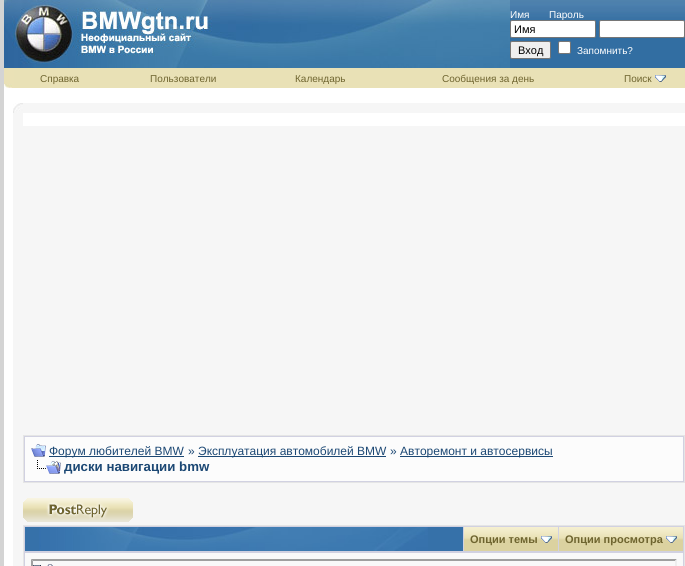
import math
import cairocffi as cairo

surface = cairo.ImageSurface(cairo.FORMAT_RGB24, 685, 566)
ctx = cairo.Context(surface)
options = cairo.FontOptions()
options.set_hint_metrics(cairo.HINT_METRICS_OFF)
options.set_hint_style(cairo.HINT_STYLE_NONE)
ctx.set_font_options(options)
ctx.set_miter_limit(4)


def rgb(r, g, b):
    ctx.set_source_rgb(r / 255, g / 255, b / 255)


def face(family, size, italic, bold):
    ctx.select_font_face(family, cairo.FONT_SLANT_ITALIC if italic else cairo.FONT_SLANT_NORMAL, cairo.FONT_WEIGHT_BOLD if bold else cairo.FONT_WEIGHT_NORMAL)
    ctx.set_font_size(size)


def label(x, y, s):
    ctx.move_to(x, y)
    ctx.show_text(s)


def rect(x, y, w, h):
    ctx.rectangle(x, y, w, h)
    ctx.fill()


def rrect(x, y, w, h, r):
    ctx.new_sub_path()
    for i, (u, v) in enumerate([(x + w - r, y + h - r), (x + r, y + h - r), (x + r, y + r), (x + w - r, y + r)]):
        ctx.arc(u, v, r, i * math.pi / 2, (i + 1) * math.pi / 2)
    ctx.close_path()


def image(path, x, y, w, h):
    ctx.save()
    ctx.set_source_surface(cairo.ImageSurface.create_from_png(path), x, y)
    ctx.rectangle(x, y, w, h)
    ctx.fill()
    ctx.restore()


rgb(212, 212, 212)
ctx.paint()
rgb(255, 255, 255)
rect(4, 88, 681, 478)
image('image0.png', 510, 0, 175, 68)
image('image1.png', 4, 0, 208, 68)
image('image2.png', 212, 0, 298, 68)
face('Liberation Sans', 10, 0, 0)
label(510, 18, 'Имя')
label(549, 18, 'Пароль')
rrect(510.5, 20.5, 85, 17, 1.5)
ctx.fill_preserve()
rgb(118, 118, 118)
ctx.set_line_width(1)
ctx.stroke()
face('Liberation Sans', 11, 0, 0)
rgb(0, 0, 0)
label(514, 33, 'Имя')
rgb(255, 255, 255)
rrect(599.5, 20.5, 85, 17, 1.5)
ctx.fill_preserve()
rgb(118, 118, 118)
ctx.stroke()
rgb(239, 239, 239)
rrect(510.5, 41.5, 40, 17, 1.5)
ctx.fill_preserve()
rgb(118, 118, 118)
ctx.stroke()
rgb(0, 0, 0)
label(518, 54, 'Вход')
rgb(255, 255, 255)
rrect(558.5, 41.5, 12, 12, 1.5)
ctx.fill_preserve()
rgb(118, 118, 118)
ctx.stroke()
face('Liberation Sans', 10, 0, 0)
rgb(255, 255, 255)
label(577, 54, 'Запомнить?')
image('image3.png', 4, 68, 10, 20)
rgb(233, 225, 182)
rect(14, 68, 671, 20)
rgb(110, 100, 47)
label(40, 82, 'Справка')
label(150, 82, 'Пользователи')
label(295, 82, 'Календарь')
label(442, 82, 'Сообщения за день')
label(624, 82, 'Поиск')
image('image4.png', 655, 75, 11, 7)
image('image5.png', 13, 103, 10, 10)
rgb(246, 246, 246)
rect(23, 103, 662, 10)
rect(13, 113, 10, 453)
rect(23, 126, 662, 399)
rgb(209, 209, 225)
ctx.rectangle(23.5, 435.5, 661, 47)
ctx.fill_preserve()
rgb(229, 229, 229)
ctx.stroke()
rgb(252, 252, 252)
rect(25, 437, 658, 44)
image('image6.png', 31, 444, 15, 13)
rgb(28, 72, 116)
rect(49, 456, 135, 1)
face('Liberation Sans', 12, 0, 0)
label(49, 455, 'Форум любителей BMW')
label(188, 455, '»')
rect(198, 456, 188, 1)
label(198, 455, 'Эксплуатация автомобилей BMW')
label(390, 455, '»')
rect(400, 456, 153, 1)
label(400, 455, 'Авторемонт и автосервисы')
image('image7.png', 37, 460, 24, 14)
face('Liberation Sans', 13.25, 0, 1)
label(64, 471, 'диски навигации bmw')
image('image8.png', 23, 498, 110, 24)
rgb(209, 209, 225)
rect(24, 526, 660, 40)
rgb(229, 229, 229)
rect(23, 525, 662, 1)
rect(684, 525, 1, 41)
rect(23, 525, 1, 41)
rgb(54, 113, 169)
rect(25, 527, 438, 24)
image('image9.png', 39, 527, 389, 24)
rgb(219, 210, 160)
rect(464, 540, 94, 11)
image('image10.png', 464, 527, 94, 13)
face('Liberation Sans', 11, 0, 1)
rgb(110, 100, 47)
label(470, 543, 'Опции темы')
image('image11.png', 541, 536, 11, 7)
rgb(219, 210, 160)
rect(559, 540, 124, 11)
image('image12.png', 559, 527, 124, 13)
rgb(110, 100, 47)
label(565, 543, 'Опции просмотра')
image('image11.png', 666, 536, 11, 7)
rgb(249, 249, 249)
rect(25, 553, 658, 13)
rgb(159, 159, 159)
ctx.new_path()
ctx.move_to(31, 559)
ctx.line_to(677, 559)
ctx.line_to(675, 561)
ctx.line_to(33, 561)
ctx.close_path()
ctx.fill()
rgb(238, 238, 238)
ctx.new_path()
ctx.move_to(677, 559)
ctx.line_to(677, 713)
ctx.line_to(675, 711)
ctx.line_to(675, 561)
ctx.close_path()
ctx.fill()
rgb(159, 159, 159)
ctx.new_path()
ctx.move_to(31, 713)
ctx.line_to(31, 559)
ctx.line_to(33, 561)
ctx.line_to(33, 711)
ctx.close_path()
ctx.fill()
image('image13.png', 33, 565, 8, 1)
image('image14.png', 47, 564, 6, 2)
surface.write_to_png('render.png')
